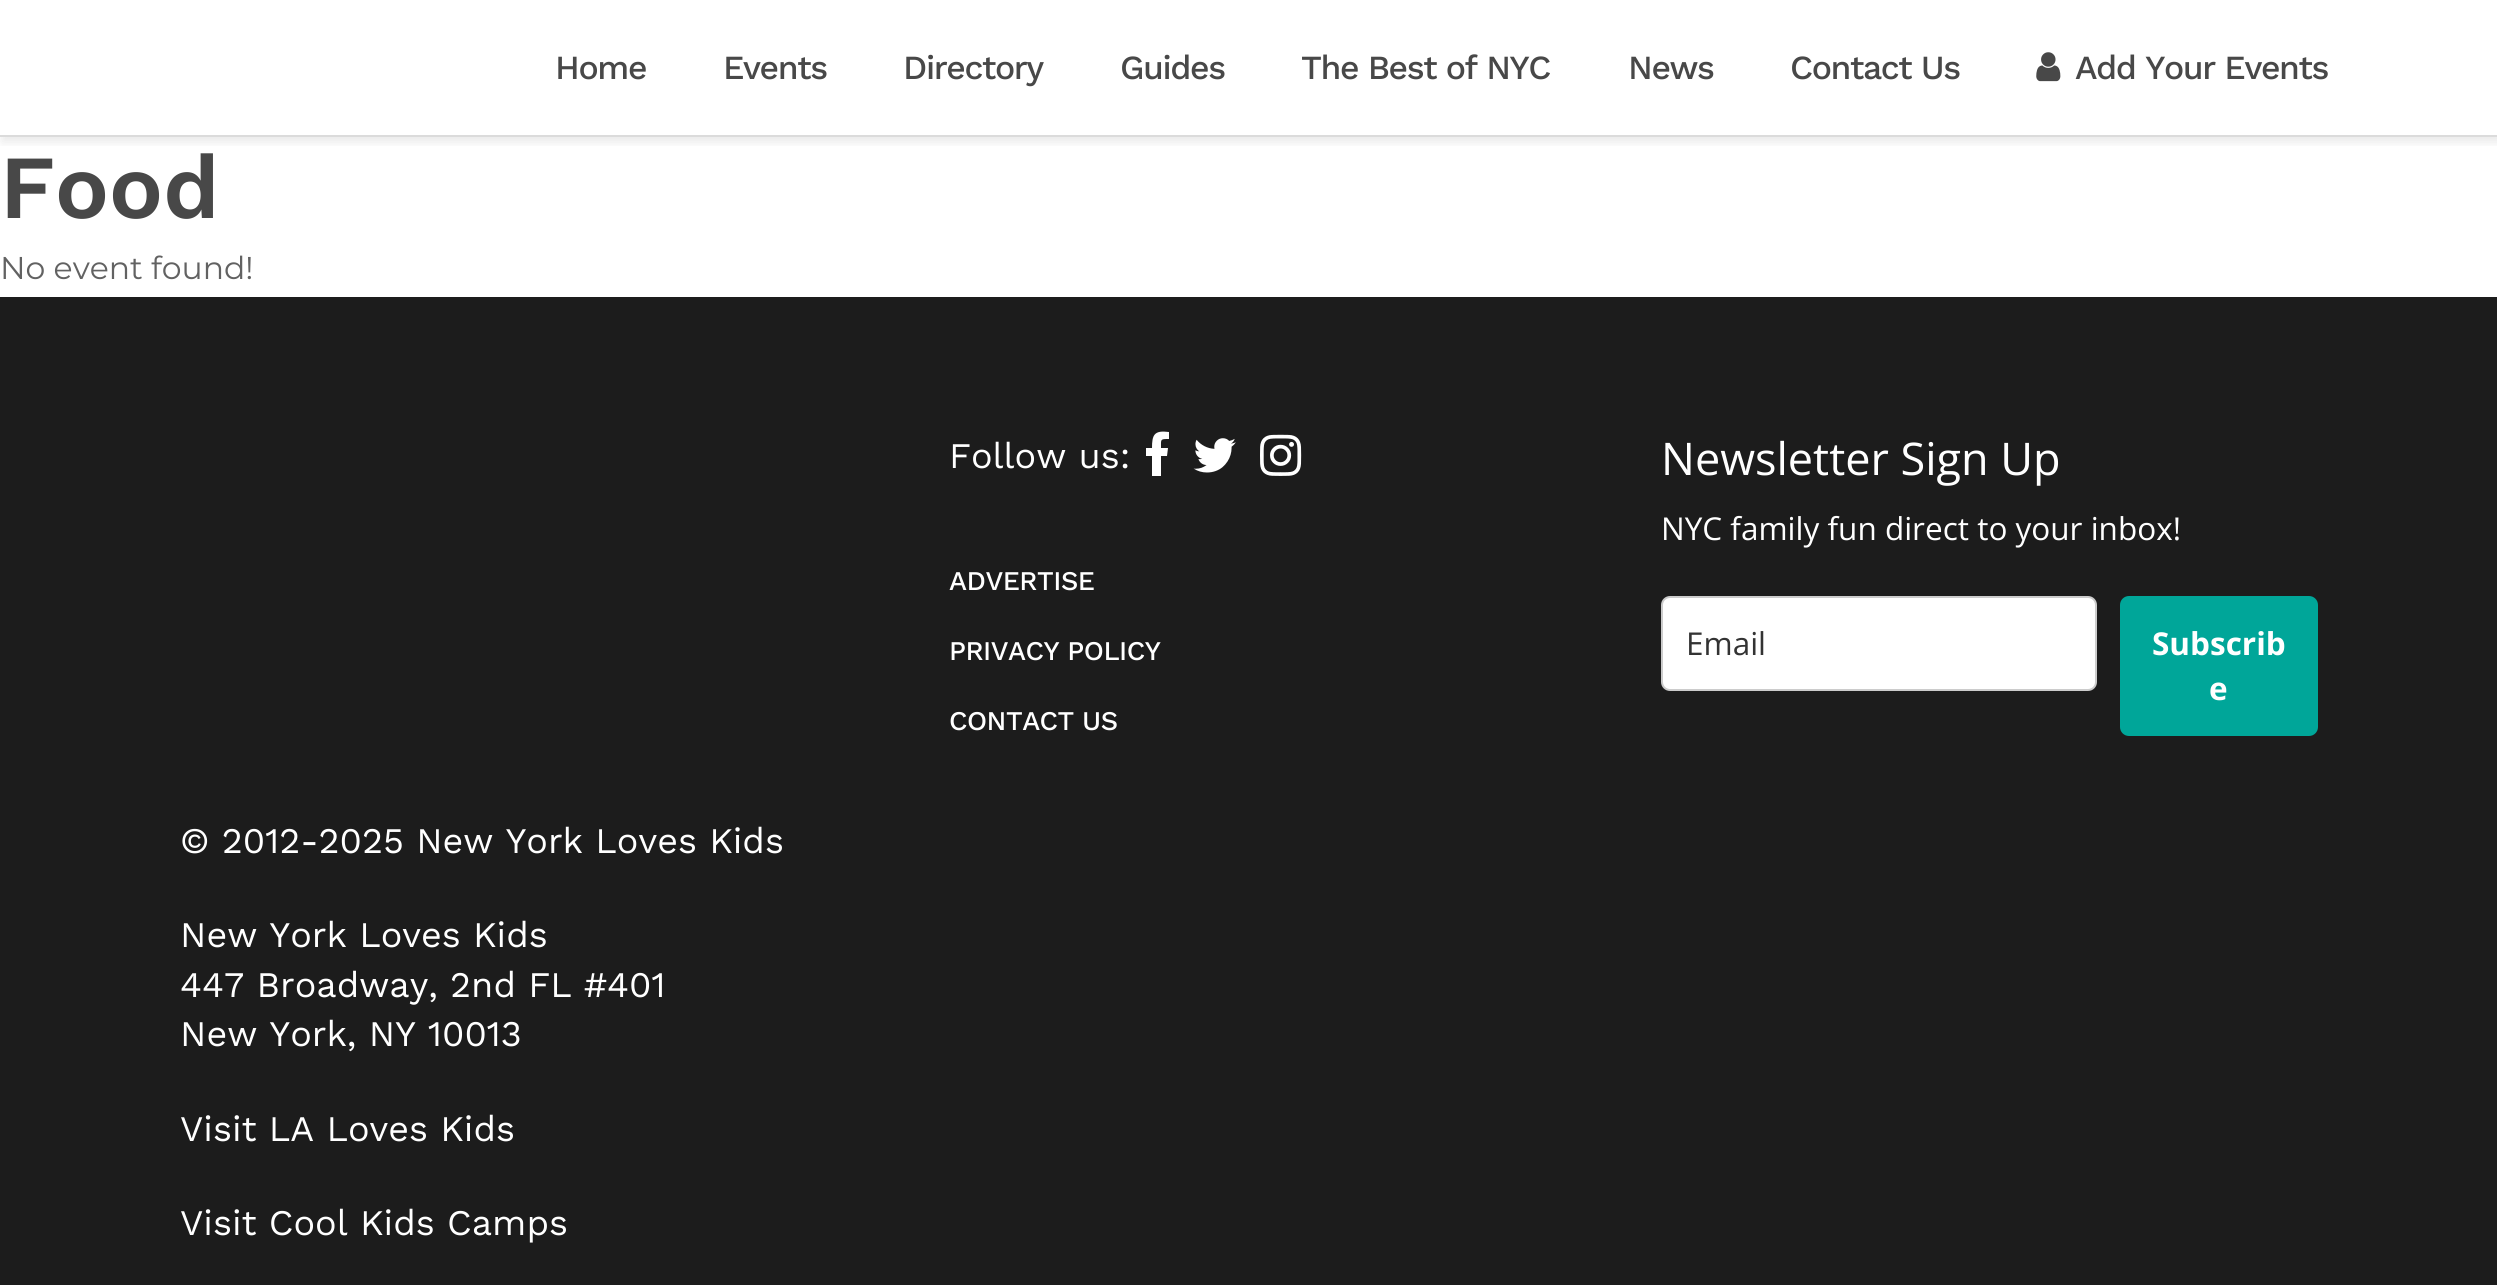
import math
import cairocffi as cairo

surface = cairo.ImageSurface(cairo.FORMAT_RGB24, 2497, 1285)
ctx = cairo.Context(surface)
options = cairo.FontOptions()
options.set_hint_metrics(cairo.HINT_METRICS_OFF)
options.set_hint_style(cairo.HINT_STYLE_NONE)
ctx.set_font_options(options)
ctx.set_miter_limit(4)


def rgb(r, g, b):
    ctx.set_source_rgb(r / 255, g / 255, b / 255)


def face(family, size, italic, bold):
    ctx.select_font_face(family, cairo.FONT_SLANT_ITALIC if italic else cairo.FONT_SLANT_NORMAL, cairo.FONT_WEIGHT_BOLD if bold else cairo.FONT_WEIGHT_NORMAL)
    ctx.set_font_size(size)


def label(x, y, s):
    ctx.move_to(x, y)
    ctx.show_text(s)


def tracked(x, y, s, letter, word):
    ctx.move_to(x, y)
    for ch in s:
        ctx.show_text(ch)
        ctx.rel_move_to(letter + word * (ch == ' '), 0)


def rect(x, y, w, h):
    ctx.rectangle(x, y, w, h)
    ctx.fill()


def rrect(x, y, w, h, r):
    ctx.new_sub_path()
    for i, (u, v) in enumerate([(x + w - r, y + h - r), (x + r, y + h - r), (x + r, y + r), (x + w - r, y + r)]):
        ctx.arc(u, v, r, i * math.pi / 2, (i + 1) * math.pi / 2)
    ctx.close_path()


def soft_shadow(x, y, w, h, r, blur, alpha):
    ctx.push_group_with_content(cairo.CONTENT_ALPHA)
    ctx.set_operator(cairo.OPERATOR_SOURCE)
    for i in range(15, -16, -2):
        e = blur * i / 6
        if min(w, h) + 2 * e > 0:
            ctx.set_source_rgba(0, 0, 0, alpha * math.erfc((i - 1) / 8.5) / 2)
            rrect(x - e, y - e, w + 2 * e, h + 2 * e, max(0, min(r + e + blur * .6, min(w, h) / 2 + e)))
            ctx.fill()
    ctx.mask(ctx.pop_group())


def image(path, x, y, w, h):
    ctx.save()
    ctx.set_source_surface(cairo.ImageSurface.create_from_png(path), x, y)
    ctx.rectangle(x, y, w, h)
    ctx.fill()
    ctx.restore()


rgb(255, 255, 255)
ctx.paint()
ctx.save()
ctx.rectangle(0, 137, 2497, 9)
ctx.clip()
rgb(0, 0, 0)
soft_shadow(2, 5, 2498, 137, 0, 5.5, 0.09)
ctx.restore()
rgb(219, 219, 219)
rect(0, 135, 2497, 2)
face('Work Sans Medium', 33.75, 0, 0)
rgb(72, 72, 72)
tracked(555, 79, 'Home', -1.4, 0)
tracked(723, 79, 'Events', -1.4, 0)
tracked(903, 79, 'Directory', -1.4, 0)
tracked(1120, 79, 'Guides', -1.4, 0)
tracked(1301, 79, 'The Best of NYC', -1.4, 0)
tracked(1628, 79, 'News', -1.4, 0)
tracked(1790, 79, 'Contact Us', -1.4, 0)
image('image0.png', 2036, 52, 25, 30)
tracked(2075, 79, 'Add Your Events', -1.4, 0)
face('Work Sans SemiBold', 90, 0, 0)
label(0, 218, 'Food')
face('Montserrat', 31.5, 0, 0)
rgb(98, 98, 98)
label(0, 279, 'No event found!')
rgb(28, 28, 28)
rect(0, 297, 2497, 988)
face('Work Sans', 36, 0, 0)
rgb(255, 255, 255)
label(949, 468, 'Follow us:')
ctx.new_path()
ctx.move_to(1169, 432)
ctx.line_to(1169, 439)
ctx.curve_to(1160, 439, 1161, 439, 1161, 448)
ctx.line_to(1168, 448)
ctx.line_to(1167, 456)
ctx.line_to(1161, 456)
ctx.line_to(1161, 476)
ctx.line_to(1152, 476)
ctx.line_to(1152, 456)
ctx.line_to(1146, 456)
ctx.line_to(1146, 448)
ctx.line_to(1152, 448)
ctx.curve_to(1152, 435, 1154, 430, 1169, 432)
ctx.close_path()
ctx.fill()
image('image1.png', 1193, 438, 43, 35)
image('image2.png', 1260, 434, 42, 42)
face('Work Sans Medium', 27, 0, 0)
tracked(949, 590, 'ADVERTISE', -0.5, 0)
tracked(949, 660, 'PRIVACY POLICY', -0.5, 0)
tracked(949, 730, 'CONTACT US', -0.5, 0)
face('Open Sans', 45, 0, 0)
label(1661, 475, 'Newsletter Sign Up')
face('Open Sans', 31.5, 0, 0)
label(1661, 540, 'NYC family fun direct to your inbox!')
rrect(1662, 597, 434, 93, 8)
ctx.fill_preserve()
rgb(204, 204, 204)
ctx.stroke()
rgb(51, 51, 51)
label(1686, 655, 'Email')
rgb(0, 166, 153)
rrect(2121, 597, 196, 138, 8)
ctx.fill_preserve()
ctx.stroke()
face('Open Sans', 31.5, 0, 1)
rgb(255, 255, 255)
label(2152, 655, 'Subscrib')
label(2209, 700, 'e')
face('Work Sans', 36, 0, 0)
label(180, 853, '© 2012-2025 New York Loves Kids')
label(180, 947, 'New York Loves Kids')
label(180, 997, '447 Broadway, 2nd FL #401')
label(180, 1046, 'New York, NY 10013')
label(180, 1141, 'Visit LA Loves Kids')
label(180, 1235, 'Visit Cool Kids Camps')
surface.write_to_png('render.png')
